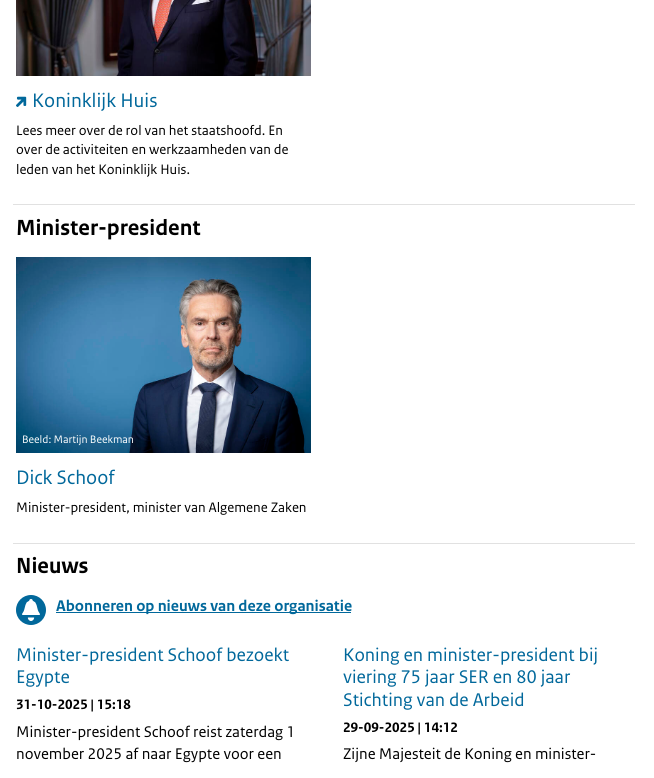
import math
import cairocffi as cairo

surface = cairo.ImageSurface(cairo.FORMAT_RGB24, 654, 778)
ctx = cairo.Context(surface)
options = cairo.FontOptions()
options.set_hint_metrics(cairo.HINT_METRICS_OFF)
options.set_hint_style(cairo.HINT_STYLE_NONE)
ctx.set_font_options(options)
ctx.set_miter_limit(4)


def rgb(r, g, b):
    ctx.set_source_rgb(r / 255, g / 255, b / 255)


def face(family, size, italic, bold):
    ctx.select_font_face(family, cairo.FONT_SLANT_ITALIC if italic else cairo.FONT_SLANT_NORMAL, cairo.FONT_WEIGHT_BOLD if bold else cairo.FONT_WEIGHT_NORMAL)
    ctx.set_font_size(size)


def label(x, y, s):
    ctx.move_to(x, y)
    ctx.show_text(s)


def rect(x, y, w, h):
    ctx.rectangle(x, y, w, h)
    ctx.fill()


def image(path, x, y, w, h):
    ctx.save()
    ctx.set_source_surface(cairo.ImageSurface.create_from_png(path), x, y)
    ctx.rectangle(x, y, w, h)
    ctx.fill()
    ctx.restore()


rgb(255, 255, 255)
ctx.paint()
image('image0.png', 16, 0, 295, 76)
image('image1.png', 16, 96, 11, 11)
face('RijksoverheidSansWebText', 20.5, 0, 0)
rgb(1, 104, 155)
label(32, 107, 'Koninklijk Huis')
face('RijksoverheidSansWebText', 14.4, 0, 0)
rgb(0, 0, 0)
label(16, 135, 'Lees meer over de rol van het staatshoofd. En')
label(16, 154, 'over de activiteiten en werkzaamheden van de')
label(16, 174, 'leden van het Koninklijk Huis.')
rgb(225, 225, 225)
rect(13, 204, 622, 1)
face('RijksoverheidSansWebText', 23, 0, 1)
rgb(0, 0, 0)
label(16, 235, 'Minister-president')
image('image2.png', 16, 257, 295, 196)
face('RijksoverheidSansWebText', 11.4, 0, 0)
rgb(255, 255, 255)
label(22, 443, 'Beeld: Martijn Beekman')
face('RijksoverheidSansWebText', 20.5, 0, 0)
rgb(1, 104, 155)
label(16, 484, 'Dick Schoof')
face('RijksoverheidSansWebText', 14.4, 0, 0)
rgb(0, 0, 0)
label(16, 512, 'Minister-president, minister van Algemene Zaken')
rgb(225, 225, 225)
rect(13, 543, 622, 1)
face('RijksoverheidSansWebText', 23, 0, 1)
rgb(0, 0, 0)
label(16, 573, 'Nieuws')
rgb(1, 104, 155)
ctx.new_path()
ctx.arc(31, 610, 15, 0, 2 * math.pi)
ctx.fill()
image('image3.png', 22, 599, 18, 22)
rect(56, 612, 295, 1)
face('RijksoverheidSansWebText', 16.25, 0, 1)
label(56, 611, 'Abonneren op nieuws van deze organisatie')
face('RijksoverheidSansWebText', 19.3, 0, 0)
label(16, 661, 'Minister-president Schoof bezoekt')
label(16, 683, 'Egypte')
face('RijksoverheidSansWebText', 14.4, 0, 1)
rgb(0, 0, 0)
label(16, 709, '31-10-2025 | 15:18')
face('RijksoverheidSansWebText', 16.25, 0, 0)
label(16, 737, 'Minister-president Schoof reist zaterdag 1')
label(16, 759, 'november 2025 af naar Egypte voor een')
face('RijksoverheidSansWebText', 19.3, 0, 0)
rgb(1, 104, 155)
label(343, 661, 'Koning en minister-president bij')
label(343, 683, 'viering 75 jaar SER en 80 jaar')
label(343, 706, 'Stichting van de Arbeid')
face('RijksoverheidSansWebText', 14.4, 0, 1)
rgb(0, 0, 0)
label(343, 732, '29-09-2025 | 14:12')
face('RijksoverheidSansWebText', 16.25, 0, 0)
label(343, 759, 'Zijne Majesteit de Koning en minister-')
surface.write_to_png('render.png')
